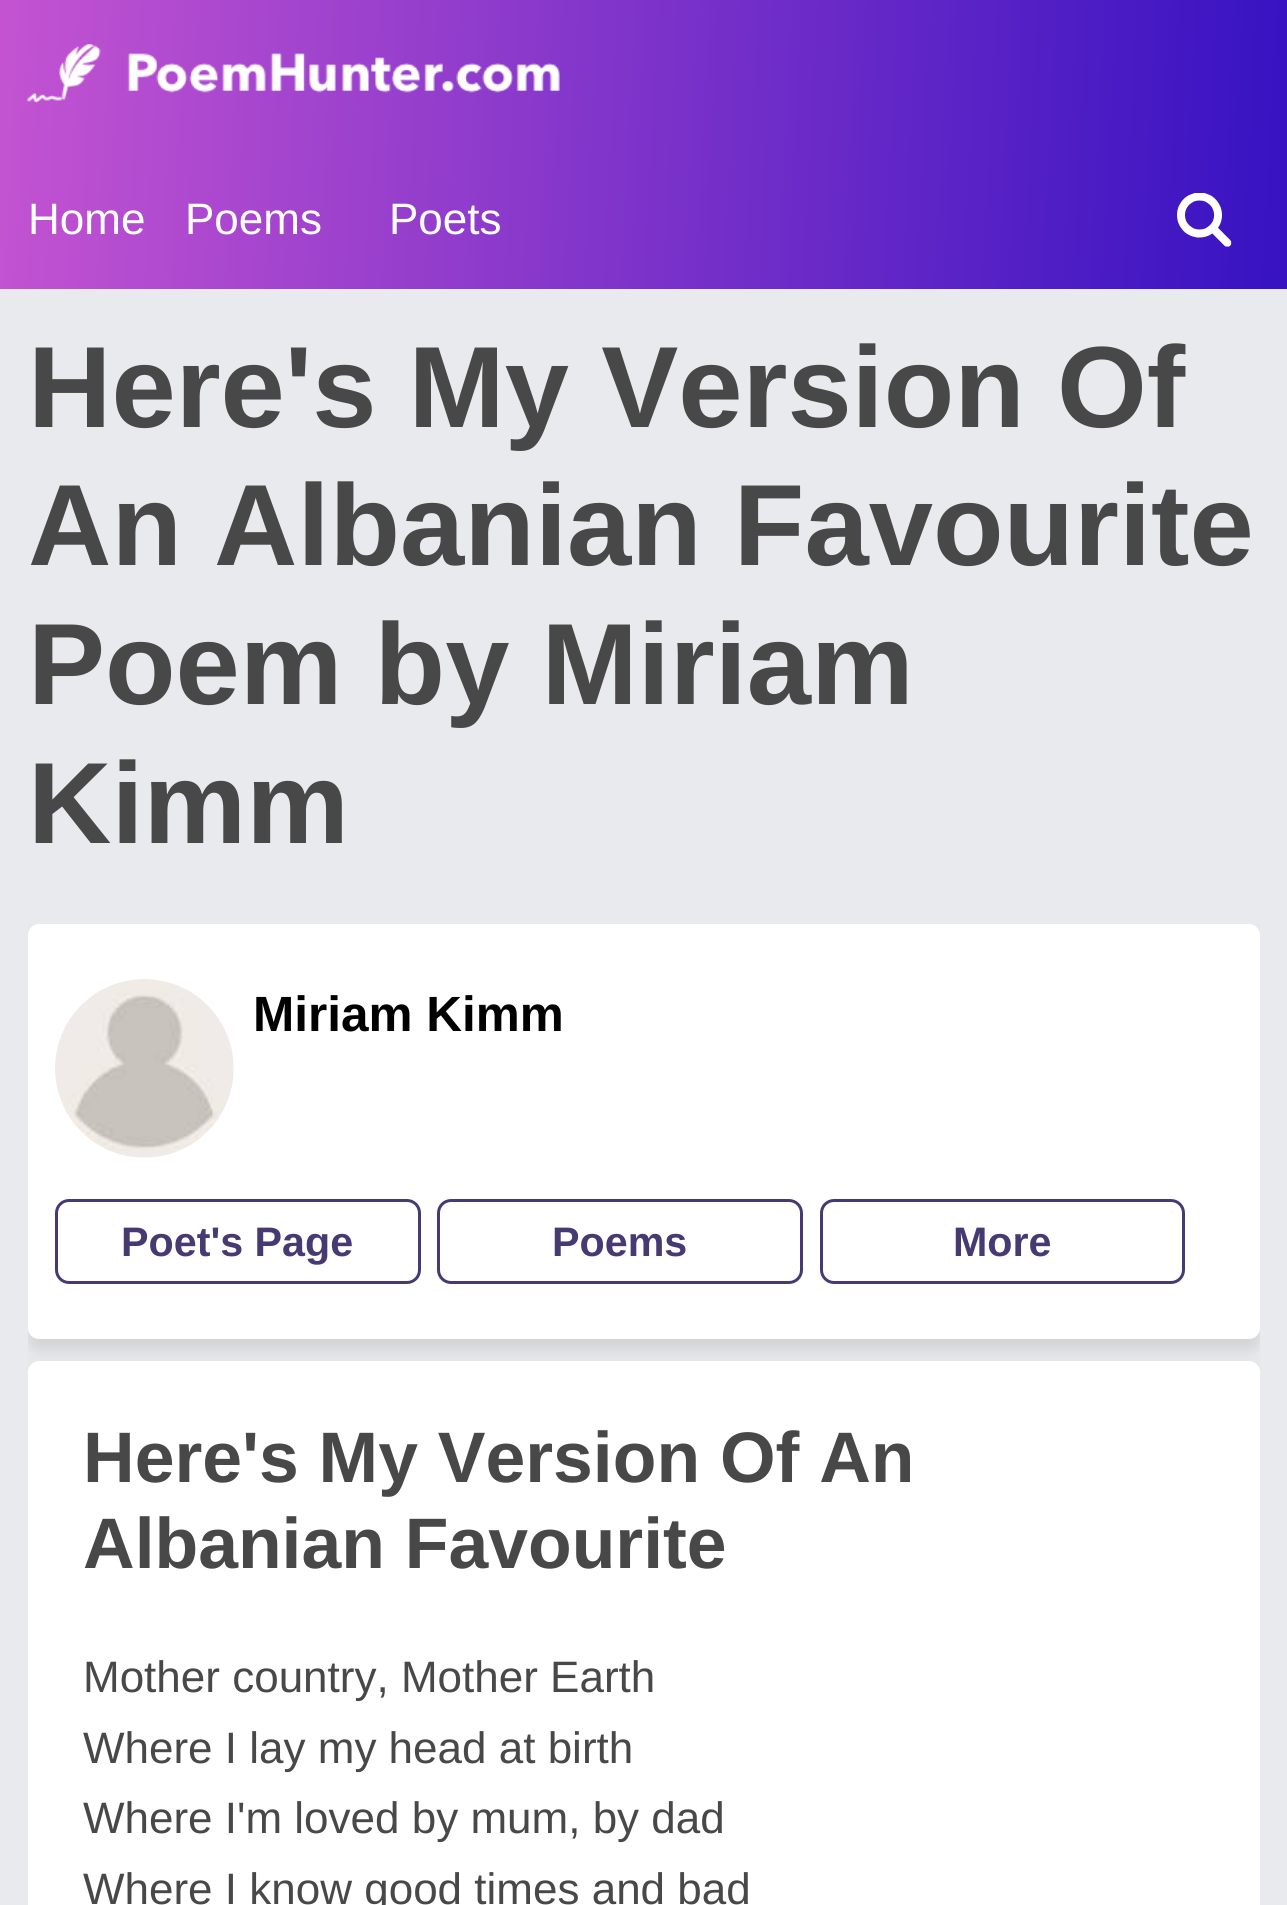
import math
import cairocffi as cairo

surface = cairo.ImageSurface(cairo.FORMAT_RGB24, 1287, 1905)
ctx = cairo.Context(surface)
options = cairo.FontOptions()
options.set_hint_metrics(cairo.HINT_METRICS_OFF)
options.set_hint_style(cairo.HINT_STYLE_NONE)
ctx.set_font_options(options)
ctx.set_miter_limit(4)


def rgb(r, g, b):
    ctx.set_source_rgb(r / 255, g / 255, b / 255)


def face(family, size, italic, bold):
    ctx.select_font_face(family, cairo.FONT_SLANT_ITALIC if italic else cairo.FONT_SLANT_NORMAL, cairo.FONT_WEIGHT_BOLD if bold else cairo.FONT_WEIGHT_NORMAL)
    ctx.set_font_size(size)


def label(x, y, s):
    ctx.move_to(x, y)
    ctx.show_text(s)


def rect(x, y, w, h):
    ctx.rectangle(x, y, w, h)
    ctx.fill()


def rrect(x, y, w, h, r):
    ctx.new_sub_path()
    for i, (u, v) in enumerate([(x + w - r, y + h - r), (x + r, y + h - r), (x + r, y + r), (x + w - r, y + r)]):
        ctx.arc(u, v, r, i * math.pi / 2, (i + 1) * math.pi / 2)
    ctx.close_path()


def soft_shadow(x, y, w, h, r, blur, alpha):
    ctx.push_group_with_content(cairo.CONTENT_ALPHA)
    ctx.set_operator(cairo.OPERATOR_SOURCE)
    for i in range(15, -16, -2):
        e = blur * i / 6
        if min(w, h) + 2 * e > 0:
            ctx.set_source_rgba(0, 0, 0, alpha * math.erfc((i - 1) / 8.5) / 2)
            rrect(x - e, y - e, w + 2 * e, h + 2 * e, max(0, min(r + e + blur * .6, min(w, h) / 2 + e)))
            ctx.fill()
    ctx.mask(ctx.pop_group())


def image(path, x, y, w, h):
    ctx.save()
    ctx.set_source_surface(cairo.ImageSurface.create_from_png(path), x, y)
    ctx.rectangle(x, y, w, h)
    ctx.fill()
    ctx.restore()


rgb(232, 234, 237)
ctx.paint()
gradient = cairo.LinearGradient(-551, 82, 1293, 178)
gradient.add_color_stop_rgba(0, 1, 0.435, 0.847, 1)
gradient.add_color_stop_rgba(0.99, 0.22, 0.075, 0.761, 1)
ctx.set_source(gradient)
rect(0, 0, 1287, 289)
image('image0.png', 27, 44, 533, 60)
face('Liberation Sans', 44, 0, 0)
rgb(255, 255, 255)
label(28, 234, 'Home')
label(185, 234, 'Poems')
label(389, 234, 'Poets')
image('image1.png', 1177, 193, 55, 54)
face('Liberation Sans', 115.5, 0, 1)
rgb(72, 72, 72)
label(28, 427, 'Here\'s My Version Of')
label(28, 565, 'An Albanian Favourite')
label(28, 704, 'Poem by Miriam')
label(28, 843, 'Kimm')
ctx.save()
ctx.rectangle(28, 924, 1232, 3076)
ctx.clip()
rgb(185, 185, 185)
soft_shadow(28, 935, 1232, 415, 11, 8, 0.5)
ctx.restore()
rgb(255, 255, 255)
rrect(28, 924, 1232, 415, 11)
ctx.fill()
image('image2.png', 55, 979, 179, 179)
face('Liberation Sans', 49.5, 0, 1)
rgb(0, 0, 0)
label(253, 1031, 'Miriam Kimm')
rrect(56.5, 1200.5, 363, 82, 12.5)
rgb(71, 58, 114)
ctx.set_line_width(3)
ctx.stroke()
face('Liberation Sans', 41.25, 0, 1)
label(121, 1256, 'Poet\'s Page')
rrect(438.5, 1200.5, 363, 82, 12.5)
ctx.stroke()
label(552, 1256, 'Poems')
rrect(821.5, 1200.5, 362, 82, 12.5)
ctx.stroke()
label(953, 1256, 'More')
ctx.save()
ctx.rectangle(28, 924, 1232, 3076)
ctx.clip()
rgb(185, 185, 185)
soft_shadow(28, 1372, 1232, 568, 11, 8, 0.5)
ctx.restore()
rgb(255, 255, 255)
rrect(28, 1361, 1232, 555, 11)
ctx.fill()
face('Liberation Sans', 71.5, 0, 1)
rgb(72, 72, 72)
label(83, 1482, 'Here\'s My Version Of An')
label(83, 1568, 'Albanian Favourite')
face('Liberation Sans', 44, 0, 0)
label(83, 1692, 'Mother country, Mother Earth')
label(83, 1763, 'Where I lay my head at birth')
label(83, 1833, 'Where I\'m loved by mum, by dad')
label(83, 1904, 'Where I know good times and bad')
surface.write_to_png('render.png')
